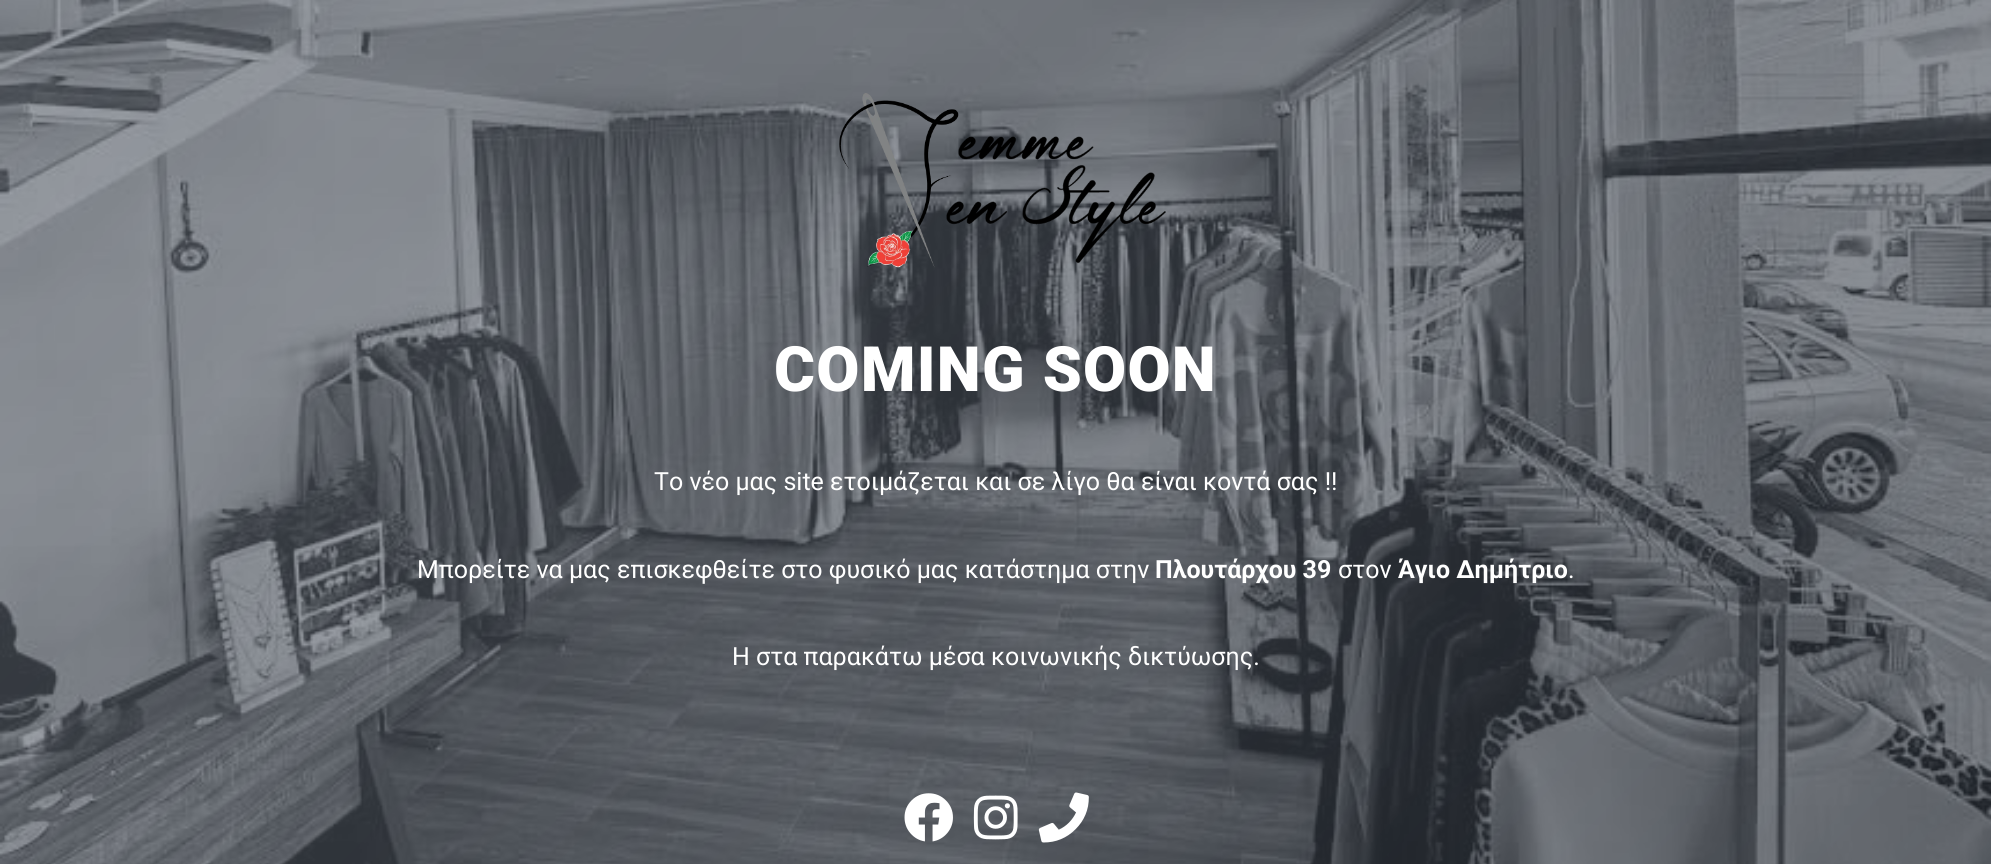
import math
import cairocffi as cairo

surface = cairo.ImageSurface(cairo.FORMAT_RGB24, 1991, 864)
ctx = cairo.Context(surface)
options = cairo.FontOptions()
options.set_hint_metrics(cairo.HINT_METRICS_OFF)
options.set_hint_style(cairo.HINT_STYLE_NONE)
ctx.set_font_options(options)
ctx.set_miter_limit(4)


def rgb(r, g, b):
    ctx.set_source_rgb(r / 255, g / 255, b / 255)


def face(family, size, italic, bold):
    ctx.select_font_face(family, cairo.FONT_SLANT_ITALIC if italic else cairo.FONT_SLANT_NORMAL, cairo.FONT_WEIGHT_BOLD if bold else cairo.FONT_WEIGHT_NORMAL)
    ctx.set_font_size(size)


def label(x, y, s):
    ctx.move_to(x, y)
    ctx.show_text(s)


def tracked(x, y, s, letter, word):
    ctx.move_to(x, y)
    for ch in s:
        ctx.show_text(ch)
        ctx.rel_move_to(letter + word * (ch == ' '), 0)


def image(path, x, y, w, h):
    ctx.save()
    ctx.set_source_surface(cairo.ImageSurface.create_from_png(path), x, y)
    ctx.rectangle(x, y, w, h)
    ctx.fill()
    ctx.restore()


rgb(255, 255, 255)
ctx.paint()
image('image0.png', 0, 0, 1991, 864)
image('image1.png', 839, 93, 327, 175)
face('Roboto Black', 62.5, 0, 0)
rgb(255, 255, 255)
tracked(774, 391, 'COMING SOON', 1.25, 0)
face('Roboto', 25, 0, 0)
label(654, 490, 'Το νέο μας site ετοιμάζεται και σε λίγο θα είναι κοντά σας !!')
label(417, 578, 'Μπορείτε να μας επισκεφθείτε στο φυσικό μας κατάστημα στην')
face('Roboto', 25, 0, 1)
label(1155, 578, 'Πλουτάρχου 39')
face('Roboto', 25, 0, 0)
label(1338, 578, 'στον')
face('Roboto', 25, 0, 1)
label(1398, 578, 'Άγιο Δημήτριο')
face('Roboto', 25, 0, 0)
label(1568, 578, '.')
label(732, 665, 'Η στα παρακάτω μέσα κοινωνικής δικτύωσης.')
image('image2.png', 904, 793, 49, 49)
image('image3.png', 973, 795, 45, 45)
image('image4.png', 1038, 792, 51, 51)
surface.write_to_png('render.png')
